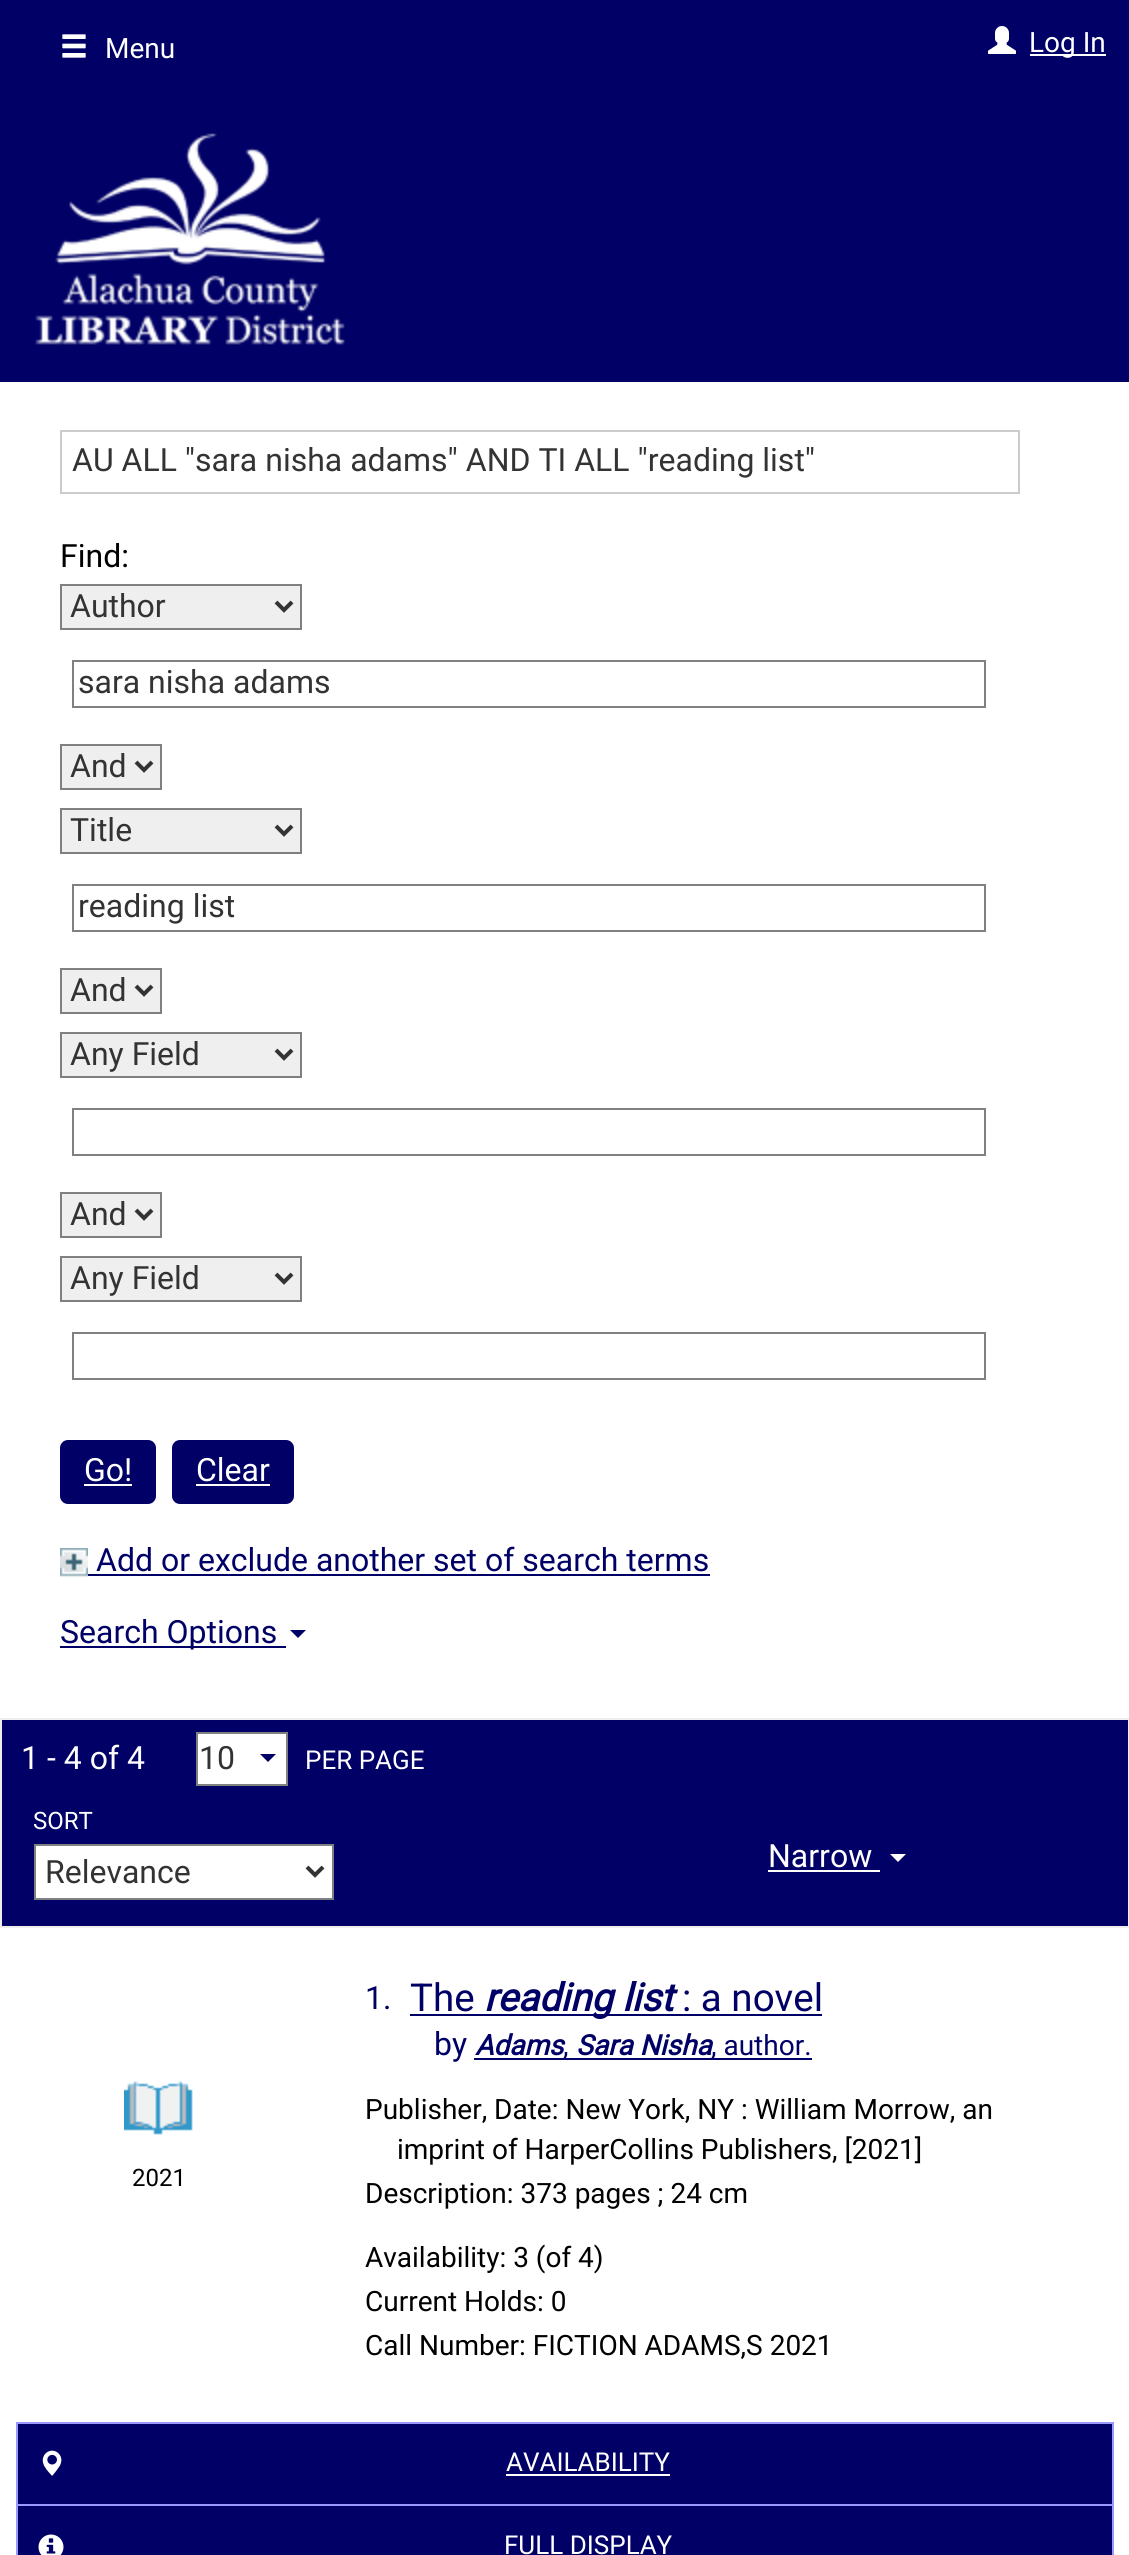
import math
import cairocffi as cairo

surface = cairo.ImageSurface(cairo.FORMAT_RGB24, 1129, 2555)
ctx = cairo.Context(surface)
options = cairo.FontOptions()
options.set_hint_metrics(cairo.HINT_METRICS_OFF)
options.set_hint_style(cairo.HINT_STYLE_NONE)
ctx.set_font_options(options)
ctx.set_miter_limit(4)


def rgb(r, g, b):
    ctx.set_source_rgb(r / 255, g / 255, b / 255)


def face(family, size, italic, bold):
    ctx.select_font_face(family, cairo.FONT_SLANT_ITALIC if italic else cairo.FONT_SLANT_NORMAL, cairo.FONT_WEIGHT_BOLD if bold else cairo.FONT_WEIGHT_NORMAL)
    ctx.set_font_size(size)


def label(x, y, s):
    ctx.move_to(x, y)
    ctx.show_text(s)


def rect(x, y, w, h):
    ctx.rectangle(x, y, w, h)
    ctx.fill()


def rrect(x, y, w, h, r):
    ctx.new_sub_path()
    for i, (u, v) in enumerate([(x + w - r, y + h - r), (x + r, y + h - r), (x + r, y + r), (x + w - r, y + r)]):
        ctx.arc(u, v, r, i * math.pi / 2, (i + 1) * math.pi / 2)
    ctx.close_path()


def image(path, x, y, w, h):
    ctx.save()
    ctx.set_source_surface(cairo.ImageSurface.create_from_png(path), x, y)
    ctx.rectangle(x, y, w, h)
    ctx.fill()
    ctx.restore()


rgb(255, 255, 255)
ctx.paint()
rgb(0, 0, 102)
rect(0, 0, 1129, 382)
image('image0.png', 62, 34, 24, 24)
face('Roboto', 28, 0, 0)
rgb(255, 255, 255)
label(105, 58, 'Menu')
image('image1.png', 988, 26, 28, 28)
rect(1030, 54, 76, 2)
label(1029, 52, 'Log In')
image('image2.png', 35, 133, 310, 212)
ctx.rectangle(61, 431, 958, 62)
rgb(204, 204, 204)
ctx.stroke()
face('Roboto', 32, 0, 0)
rgb(51, 51, 51)
label(72, 471, 'AU ALL "sara nisha adams" AND TI ALL "reading list"')
rgb(0, 0, 0)
label(60, 567, 'Find:')
rgb(239, 239, 239)
ctx.rectangle(61, 585, 240, 44)
ctx.fill_preserve()
rgb(128, 128, 128)
ctx.stroke()
ctx.new_path()
ctx.move_to(276, 602)
ctx.line_to(284, 610)
ctx.line_to(292, 602)
rgb(51, 51, 51)
ctx.set_line_width(4)
ctx.stroke()
label(70, 617, 'Author')
ctx.rectangle(73, 661, 912, 46)
rgb(128, 128, 128)
ctx.set_line_width(2)
ctx.stroke()
rgb(51, 51, 51)
label(78, 693, 'sara nisha adams')
rgb(239, 239, 239)
ctx.rectangle(61, 745, 100, 44)
ctx.fill_preserve()
rgb(128, 128, 128)
ctx.stroke()
ctx.new_path()
ctx.move_to(136, 762)
ctx.line_to(144, 770)
ctx.line_to(152, 762)
rgb(51, 51, 51)
ctx.set_line_width(4)
ctx.stroke()
label(70, 777, 'And')
rgb(239, 239, 239)
ctx.rectangle(61, 809, 240, 44)
ctx.fill_preserve()
rgb(128, 128, 128)
ctx.set_line_width(2)
ctx.stroke()
ctx.new_path()
ctx.move_to(276, 826)
ctx.line_to(284, 834)
ctx.line_to(292, 826)
rgb(51, 51, 51)
ctx.set_line_width(4)
ctx.stroke()
label(70, 841, 'Title')
ctx.rectangle(73, 885, 912, 46)
rgb(128, 128, 128)
ctx.set_line_width(2)
ctx.stroke()
rgb(51, 51, 51)
label(78, 917, 'reading list')
rgb(239, 239, 239)
ctx.rectangle(61, 969, 100, 44)
ctx.fill_preserve()
rgb(128, 128, 128)
ctx.stroke()
ctx.new_path()
ctx.move_to(136, 986)
ctx.line_to(144, 994)
ctx.line_to(152, 986)
rgb(51, 51, 51)
ctx.set_line_width(4)
ctx.stroke()
label(70, 1001, 'And')
rgb(239, 239, 239)
ctx.rectangle(61, 1033, 240, 44)
ctx.fill_preserve()
rgb(128, 128, 128)
ctx.set_line_width(2)
ctx.stroke()
ctx.new_path()
ctx.move_to(276, 1050)
ctx.line_to(284, 1058)
ctx.line_to(292, 1050)
rgb(51, 51, 51)
ctx.set_line_width(4)
ctx.stroke()
label(70, 1065, 'Any Field')
ctx.rectangle(73, 1109, 912, 46)
rgb(128, 128, 128)
ctx.set_line_width(2)
ctx.stroke()
rgb(239, 239, 239)
ctx.rectangle(61, 1193, 100, 44)
ctx.fill_preserve()
rgb(128, 128, 128)
ctx.stroke()
ctx.new_path()
ctx.move_to(136, 1210)
ctx.line_to(144, 1218)
ctx.line_to(152, 1210)
rgb(51, 51, 51)
ctx.set_line_width(4)
ctx.stroke()
label(70, 1225, 'And')
rgb(239, 239, 239)
ctx.rectangle(61, 1257, 240, 44)
ctx.fill_preserve()
rgb(128, 128, 128)
ctx.set_line_width(2)
ctx.stroke()
ctx.new_path()
ctx.move_to(276, 1274)
ctx.line_to(284, 1282)
ctx.line_to(292, 1274)
rgb(51, 51, 51)
ctx.set_line_width(4)
ctx.stroke()
label(70, 1289, 'Any Field')
ctx.rectangle(73, 1333, 912, 46)
rgb(128, 128, 128)
ctx.set_line_width(2)
ctx.stroke()
rgb(0, 0, 102)
rrect(60, 1440, 96, 64, 8)
ctx.fill()
rgb(255, 255, 255)
label(84, 1481, 'Go!')
rect(84, 1484, 48, 2)
rgb(0, 0, 102)
rrect(172, 1440, 122, 64, 8)
ctx.fill()
rgb(255, 255, 255)
label(196, 1481, 'Clear')
rect(196, 1484, 74, 2)
image('image3.png', 60, 1548, 28, 29)
rgb(0, 0, 102)
label(96, 1571, 'Add or exclude another set of search terms')
rect(88, 1574, 622, 2)
rect(60, 1646, 226, 2)
label(60, 1643, 'Search Options')
ctx.new_path()
ctx.move_to(290, 1630)
ctx.line_to(306, 1630)
ctx.line_to(298, 1638)
ctx.close_path()
ctx.fill()
ctx.rectangle(1, 1719, 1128, 208)
ctx.fill_preserve()
rgb(239, 238, 236)
ctx.stroke()
rgb(255, 255, 255)
label(21, 1769, '1 - 4 of 4')
ctx.rectangle(197, 1733, 90, 52)
ctx.fill_preserve()
rgb(128, 128, 128)
ctx.stroke()
rgb(51, 51, 51)
label(199, 1769, '10')
rgb(0, 0, 102)
ctx.new_path()
ctx.move_to(260, 1754)
ctx.line_to(276, 1754)
ctx.line_to(268, 1762)
ctx.close_path()
ctx.fill()
face('Roboto', 26, 0, 0)
rgb(255, 255, 255)
label(305, 1769, 'PER PAGE')
face('Roboto', 24, 0, 0)
label(33, 1829, 'SORT')
ctx.rectangle(35, 1845, 298, 54)
ctx.fill_preserve()
rgb(128, 128, 128)
ctx.stroke()
ctx.new_path()
ctx.move_to(307, 1867)
ctx.line_to(315, 1875)
ctx.line_to(323, 1867)
rgb(51, 51, 51)
ctx.set_line_width(4)
ctx.stroke()
face('Roboto', 32, 0, 0)
label(45, 1883, 'Relevance')
rgb(255, 255, 255)
label(768, 1867, 'Narrow')
rect(768, 1870, 112, 2)
ctx.new_path()
ctx.move_to(890, 1854)
ctx.line_to(906, 1854)
ctx.line_to(898, 1862)
ctx.close_path()
ctx.fill()
image('image4.png', 124, 2081, 69, 54)
face('Roboto', 24, 0, 0)
rgb(0, 0, 0)
label(132, 2186, '2021')
face('Roboto', 32, 0, 0)
rgb(0, 0, 102)
label(365, 2009, '1.')
face('Roboto', 38.5, 0, 0)
label(410, 2011, 'The')
rect(410, 2014, 202, 2)
face('Roboto', 38.5, 1, 1)
label(484, 2011, 'reading list')
rect(612, 2014, 210, 2)
face('Roboto', 38.5, 0, 0)
label(682, 2011, ': a novel')
face('Roboto', 32, 0, 0)
label(434, 2055, 'by')
face('Roboto', 28, 1, 1)
label(475, 2055, 'Adams')
rect(474, 2058, 338, 2)
face('Roboto', 28, 0, 0)
label(563, 2055, ',')
face('Roboto', 28, 1, 1)
label(576, 2055, 'Sara Nisha')
face('Roboto', 28, 0, 0)
label(711, 2055, ', author.')
rgb(0, 0, 0)
label(365, 2119, 'Publisher, Date: New York, NY : William Morrow, an')
label(397, 2159, 'imprint of HarperCollins Publishers, [2021]')
label(365, 2203, 'Description: 373 pages ; 24 cm')
label(365, 2267, 'Availability: 3 (of 4)')
label(365, 2311, 'Current Holds: 0')
label(365, 2355, 'Call Number: FICTION ADAMS,S 2021')
rgb(0, 0, 102)
rect(18, 2424, 1094, 80)
rgb(153, 153, 255)
rect(16, 2422, 1098, 2)
rect(1112, 2422, 2, 82)
rect(16, 2422, 2, 82)
image('image5.png', 42, 2450, 20, 26)
face('Roboto', 26, 0, 0)
rgb(255, 255, 255)
label(506, 2471, 'AVAILABILITY')
rect(506, 2474, 164, 2)
rgb(0, 0, 102)
rect(18, 2506, 1094, 49)
rgb(153, 153, 255)
rect(16, 2504, 1098, 2)
rect(1112, 2504, 2, 51)
rect(16, 2504, 2, 51)
image('image6.png', 38, 2534, 26, 21)
rgb(255, 255, 255)
label(504, 2554, 'FULL DISPLAY')
surface.write_to_png('render.png')
